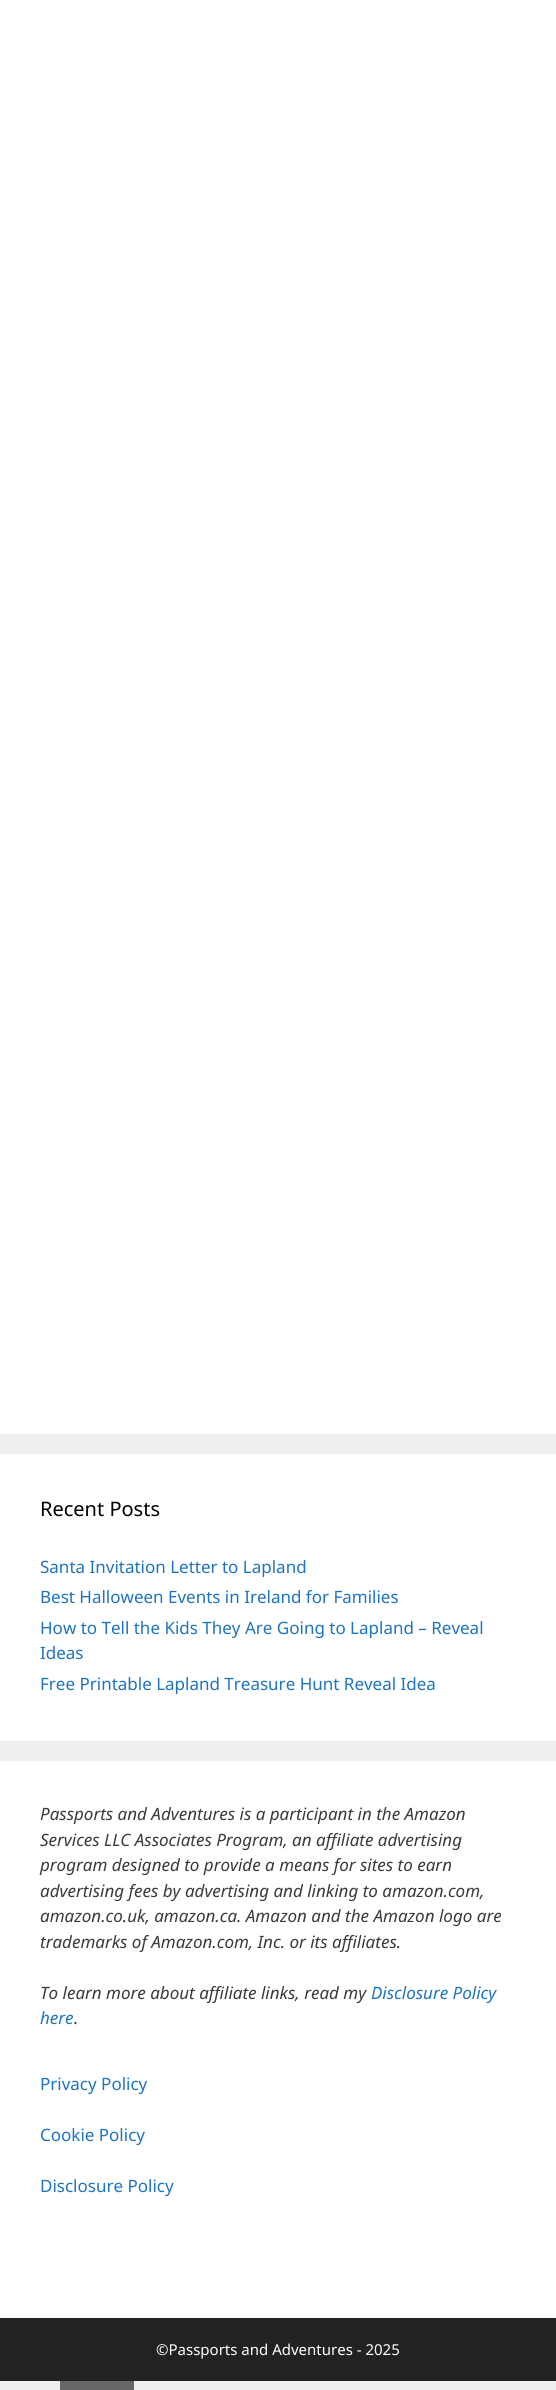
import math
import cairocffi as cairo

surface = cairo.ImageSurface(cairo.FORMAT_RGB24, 556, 2390)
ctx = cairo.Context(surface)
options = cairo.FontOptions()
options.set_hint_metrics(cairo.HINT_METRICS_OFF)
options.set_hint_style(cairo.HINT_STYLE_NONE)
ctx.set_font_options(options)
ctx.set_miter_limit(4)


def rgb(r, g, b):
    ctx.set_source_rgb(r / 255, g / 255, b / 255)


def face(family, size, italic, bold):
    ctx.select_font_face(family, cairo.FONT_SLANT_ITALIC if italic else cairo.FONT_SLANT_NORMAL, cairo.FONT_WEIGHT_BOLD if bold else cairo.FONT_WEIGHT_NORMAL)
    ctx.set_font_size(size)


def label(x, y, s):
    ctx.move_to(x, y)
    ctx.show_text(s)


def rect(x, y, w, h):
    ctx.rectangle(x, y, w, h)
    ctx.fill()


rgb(239, 239, 239)
ctx.paint()
rgb(255, 255, 255)
rect(0, 0, 556, 1434)
rect(0, 1454, 556, 287)
face('Noto Sans', 20, 0, 0)
rgb(0, 0, 0)
label(40, 1516, 'Recent Posts')
face('Noto Sans', 17, 0, 0)
rgb(30, 115, 190)
label(40, 1573, 'Santa Invitation Letter to Lapland')
label(40, 1603, 'Best Halloween Events in Ireland for Families')
label(40, 1634, 'How to Tell the Kids They Are Going to Lapland – Reveal')
label(40, 1659, 'Ideas')
label(40, 1690, 'Free Printable Lapland Treasure Hunt Reveal Idea')
rgb(255, 255, 255)
rect(0, 1761, 556, 557)
face('Noto Sans', 17, 1, 0)
rgb(58, 58, 58)
label(40, 1820, 'Passports and Adventures is a participant in the Amazon')
label(40, 1846, 'Services LLC Associates Program, an affiliate advertising')
label(40, 1871, 'program designed to provide a means for sites to earn')
label(40, 1897, 'advertising fees by advertising and linking to amazon.com,')
label(40, 1922, 'amazon.co.uk, amazon.ca. Amazon and the Amazon logo are')
label(40, 1948, 'trademarks of Amazon.com, Inc. or its affiliates.')
label(40, 1999, 'To learn more about affiliate links, read my')
rgb(30, 115, 190)
label(371, 1999, 'Disclosure Policy')
label(40, 2024, 'here')
rgb(58, 58, 58)
label(74, 2024, '.')
face('Noto Sans', 17, 0, 0)
rgb(30, 115, 190)
label(40, 2090, 'Privacy Policy')
label(40, 2141, 'Cookie Policy')
label(40, 2192, 'Disclosure Policy')
rgb(34, 34, 34)
rect(0, 2318, 556, 63)
face('Noto Sans', 15, 0, 0)
rgb(255, 255, 255)
label(156, 2355, '©Passports and Adventures - 2025')
rgb(102, 102, 102)
rect(60, 2381, 74, 9)
surface.write_to_png('render.png')
